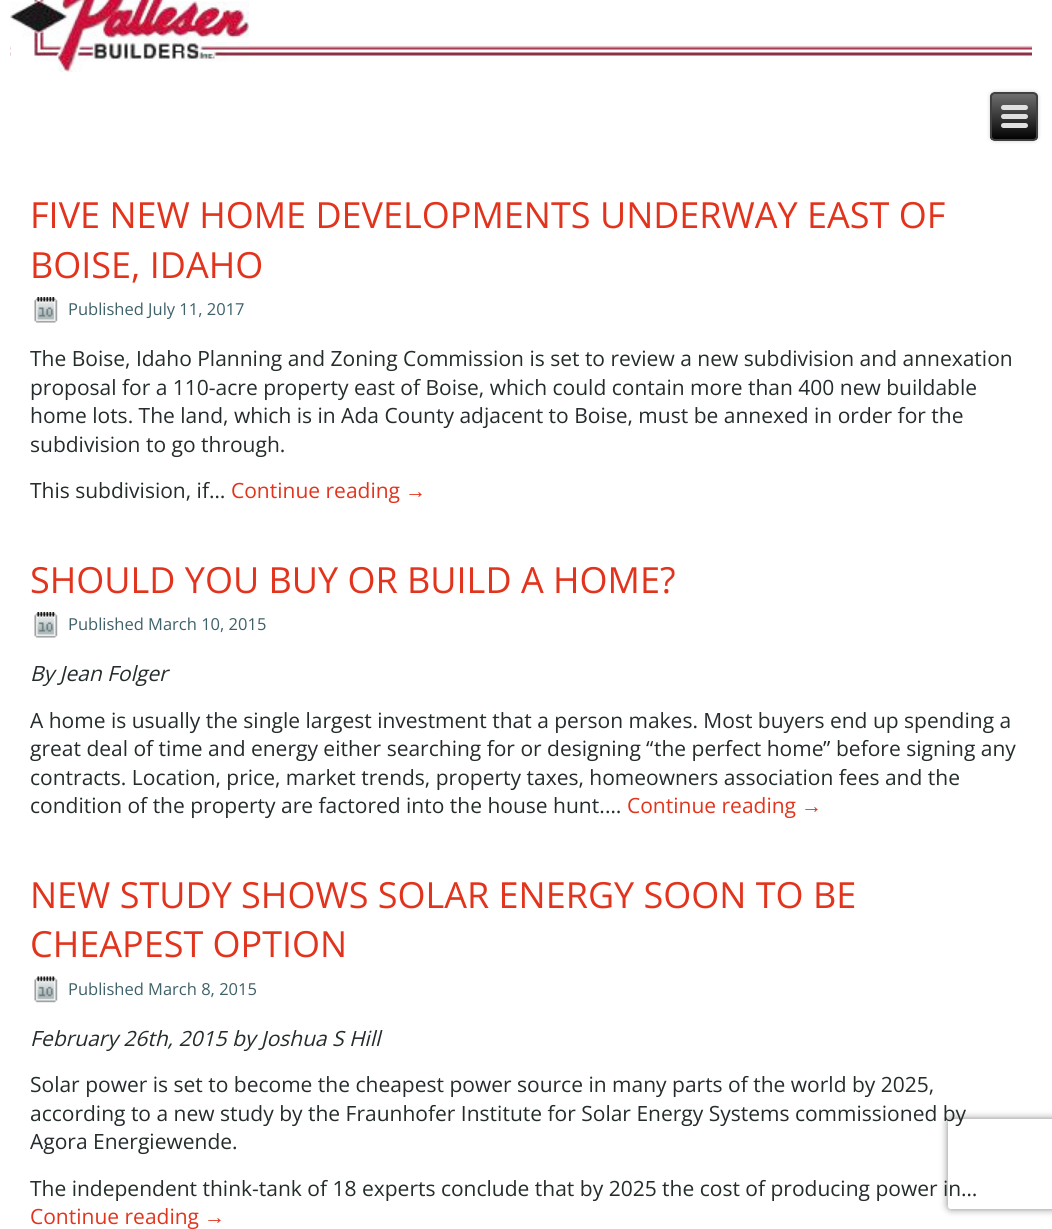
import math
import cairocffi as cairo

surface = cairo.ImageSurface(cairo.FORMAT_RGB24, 1052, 1229)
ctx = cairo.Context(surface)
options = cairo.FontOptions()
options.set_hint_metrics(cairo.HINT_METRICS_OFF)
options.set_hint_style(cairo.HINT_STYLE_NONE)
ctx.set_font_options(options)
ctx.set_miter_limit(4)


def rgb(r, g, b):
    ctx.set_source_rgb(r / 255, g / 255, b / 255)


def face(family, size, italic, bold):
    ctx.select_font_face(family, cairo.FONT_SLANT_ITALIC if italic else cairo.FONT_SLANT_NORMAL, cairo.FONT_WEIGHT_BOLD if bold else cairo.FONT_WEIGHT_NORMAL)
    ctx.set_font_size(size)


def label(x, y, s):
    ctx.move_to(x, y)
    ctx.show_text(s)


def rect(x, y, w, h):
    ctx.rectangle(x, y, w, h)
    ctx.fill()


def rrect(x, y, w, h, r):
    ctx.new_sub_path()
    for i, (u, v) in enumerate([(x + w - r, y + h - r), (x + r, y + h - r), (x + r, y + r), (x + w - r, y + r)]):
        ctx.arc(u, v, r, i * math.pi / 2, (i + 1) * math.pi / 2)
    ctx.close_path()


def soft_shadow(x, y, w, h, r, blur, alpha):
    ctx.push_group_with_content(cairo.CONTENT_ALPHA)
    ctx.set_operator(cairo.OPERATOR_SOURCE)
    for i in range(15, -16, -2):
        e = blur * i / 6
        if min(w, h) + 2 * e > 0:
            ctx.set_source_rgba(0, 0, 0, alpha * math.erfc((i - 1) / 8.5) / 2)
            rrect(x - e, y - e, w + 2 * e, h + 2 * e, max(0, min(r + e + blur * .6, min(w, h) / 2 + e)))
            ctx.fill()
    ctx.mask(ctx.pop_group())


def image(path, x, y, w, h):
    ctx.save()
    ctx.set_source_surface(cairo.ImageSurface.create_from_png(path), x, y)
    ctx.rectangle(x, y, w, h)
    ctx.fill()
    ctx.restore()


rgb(255, 255, 255)
ctx.paint()
image('image0.png', 10, 45, 1022, 11)
image('image1.png', 10, 0, 239, 72)
rgb(0, 0, 0)
soft_shadow(990, 92, 48, 49, 5, 2, 0.2)
ctx.save()
rrect(990, 92, 48, 49, 5)
ctx.clip()
gradient = cairo.LinearGradient(1014, 93, 1014, 140)
gradient.add_color_stop_rgba(0, 0.439, 0.439, 0.439, 1)
gradient.add_color_stop_rgba(1, 0, 0, 0, 1)
ctx.set_source(gradient)
rect(990, 93, 48, 47)
ctx.restore()
rrect(991, 93, 46, 47, 4)
rgb(64, 64, 64)
ctx.stroke()
rgb(224, 224, 224)
rrect(1001, 105, 27, 5, 2.5)
ctx.fill()
rrect(1001, 114, 27, 5, 2.5)
ctx.fill()
rrect(1001, 123, 27, 5, 2.5)
ctx.fill()
face('Open Sans', 36, 0, 0)
rgb(226, 52, 29)
label(30, 228, 'FIVE NEW HOME DEVELOPMENTS UNDERWAY EAST OF')
label(30, 278, 'BOISE, IDAHO')
image('image2.png', 34, 297, 24, 26)
face('Open Sans', 16.5, 0, 0)
rgb(63, 97, 105)
label(68, 315, 'Published July 11, 2017')
face('Open Sans', 21, 0, 0)
rgb(37, 44, 45)
label(30, 366, 'The Boise, Idaho Planning and Zoning Commission is set to review a new subdivision and annexation')
label(30, 395, 'proposal for a 110-acre property east of Boise, which could contain more than 400 new buildable')
label(30, 423, 'home lots. The land, which is in Ada County adjacent to Boise, must be annexed in order for the')
label(30, 452, 'subdivision to go through.')
label(30, 498, 'This subdivision, if')
face('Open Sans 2', 21, 0, 0)
label(209, 498, '…')
face('Open Sans', 21, 0, 0)
rgb(226, 52, 29)
label(231, 498, 'Continue reading')
face('Liberation Sans', 21, 0, 0)
label(405, 498, '→')
face('Open Sans', 36, 0, 0)
label(30, 593, 'SHOULD YOU BUY OR BUILD A HOME?')
image('image2.png', 34, 612, 24, 26)
face('Open Sans', 16.5, 0, 0)
rgb(63, 97, 105)
label(68, 630, 'Published March 10, 2015')
face('Open Sans', 21, 1, 0)
rgb(37, 44, 45)
label(30, 681, 'By Jean Folger')
face('Open Sans', 21, 0, 0)
label(30, 728, 'A home is usually the single largest investment that a person makes. Most buyers end up spending a')
label(30, 756, 'great deal of time and energy either searching for or designing')
face('Open Sans 2', 21, 0, 0)
label(646, 756, '“')
face('Open Sans', 21, 0, 0)
label(654, 756, 'the perfect home')
face('Open Sans 2', 21, 0, 0)
label(823, 756, '”')
face('Open Sans', 21, 0, 0)
label(836, 756, 'before signing any')
label(30, 785, 'contracts. Location, price, market trends, property taxes, homeowners association fees and the')
label(30, 813, 'condition of the property are factored into the house hunt.')
face('Open Sans 2', 21, 0, 0)
label(605, 813, '…')
face('Open Sans', 21, 0, 0)
rgb(226, 52, 29)
label(627, 813, 'Continue reading')
face('Liberation Sans', 21, 0, 0)
label(801, 813, '→')
face('Open Sans', 36, 0, 0)
label(30, 908, 'NEW STUDY SHOWS SOLAR ENERGY SOON TO BE')
label(30, 957, 'CHEAPEST OPTION')
image('image3.png', 34, 976, 24, 27)
face('Open Sans', 16.5, 0, 0)
rgb(63, 97, 105)
label(68, 995, 'Published March 8, 2015')
face('Open Sans', 21, 1, 0)
rgb(37, 44, 45)
label(30, 1046, 'February 26th, 2015 by Joshua S Hill')
face('Open Sans', 21, 0, 0)
label(30, 1092, 'Solar power is set to become the cheapest power source in many parts of the world by 2025,')
ctx.save()
ctx.set_fill_rule(cairo.FILL_RULE_EVEN_ODD)
ctx.new_path()
ctx.move_to(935, 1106)
ctx.line_to(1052, 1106)
ctx.line_to(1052, 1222)
ctx.line_to(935, 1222)
ctx.close_path()
ctx.move_to(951, 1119)
ctx.line_to(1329, 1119)
ctx.curve_to(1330.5, 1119, 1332, 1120.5, 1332, 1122)
ctx.line_to(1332, 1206)
ctx.curve_to(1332, 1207.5, 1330.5, 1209, 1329, 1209)
ctx.line_to(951, 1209)
ctx.curve_to(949.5, 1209, 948, 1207.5, 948, 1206)
ctx.line_to(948, 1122)
ctx.curve_to(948, 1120.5, 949.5, 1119, 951, 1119)
ctx.close_path()
ctx.clip()
rgb(128, 128, 128)
soft_shadow(948, 1119, 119, 90, 3, 4, 1)
ctx.restore()
label(30, 1121, 'according to a new study by the Fraunhofer Institute for Solar Energy Systems commissioned by')
label(30, 1149, 'Agora Energiewende.')
label(30, 1196, 'The independent think-tank of 18 experts conclude that by 2025 the cost of producing power in')
face('Open Sans 2', 21, 0, 0)
label(961, 1196, '…')
face('Open Sans', 21, 0, 0)
rgb(226, 52, 29)
label(30, 1224, 'Continue reading')
face('Liberation Sans', 21, 0, 0)
label(204, 1224, '→')
surface.write_to_png('render.png')
